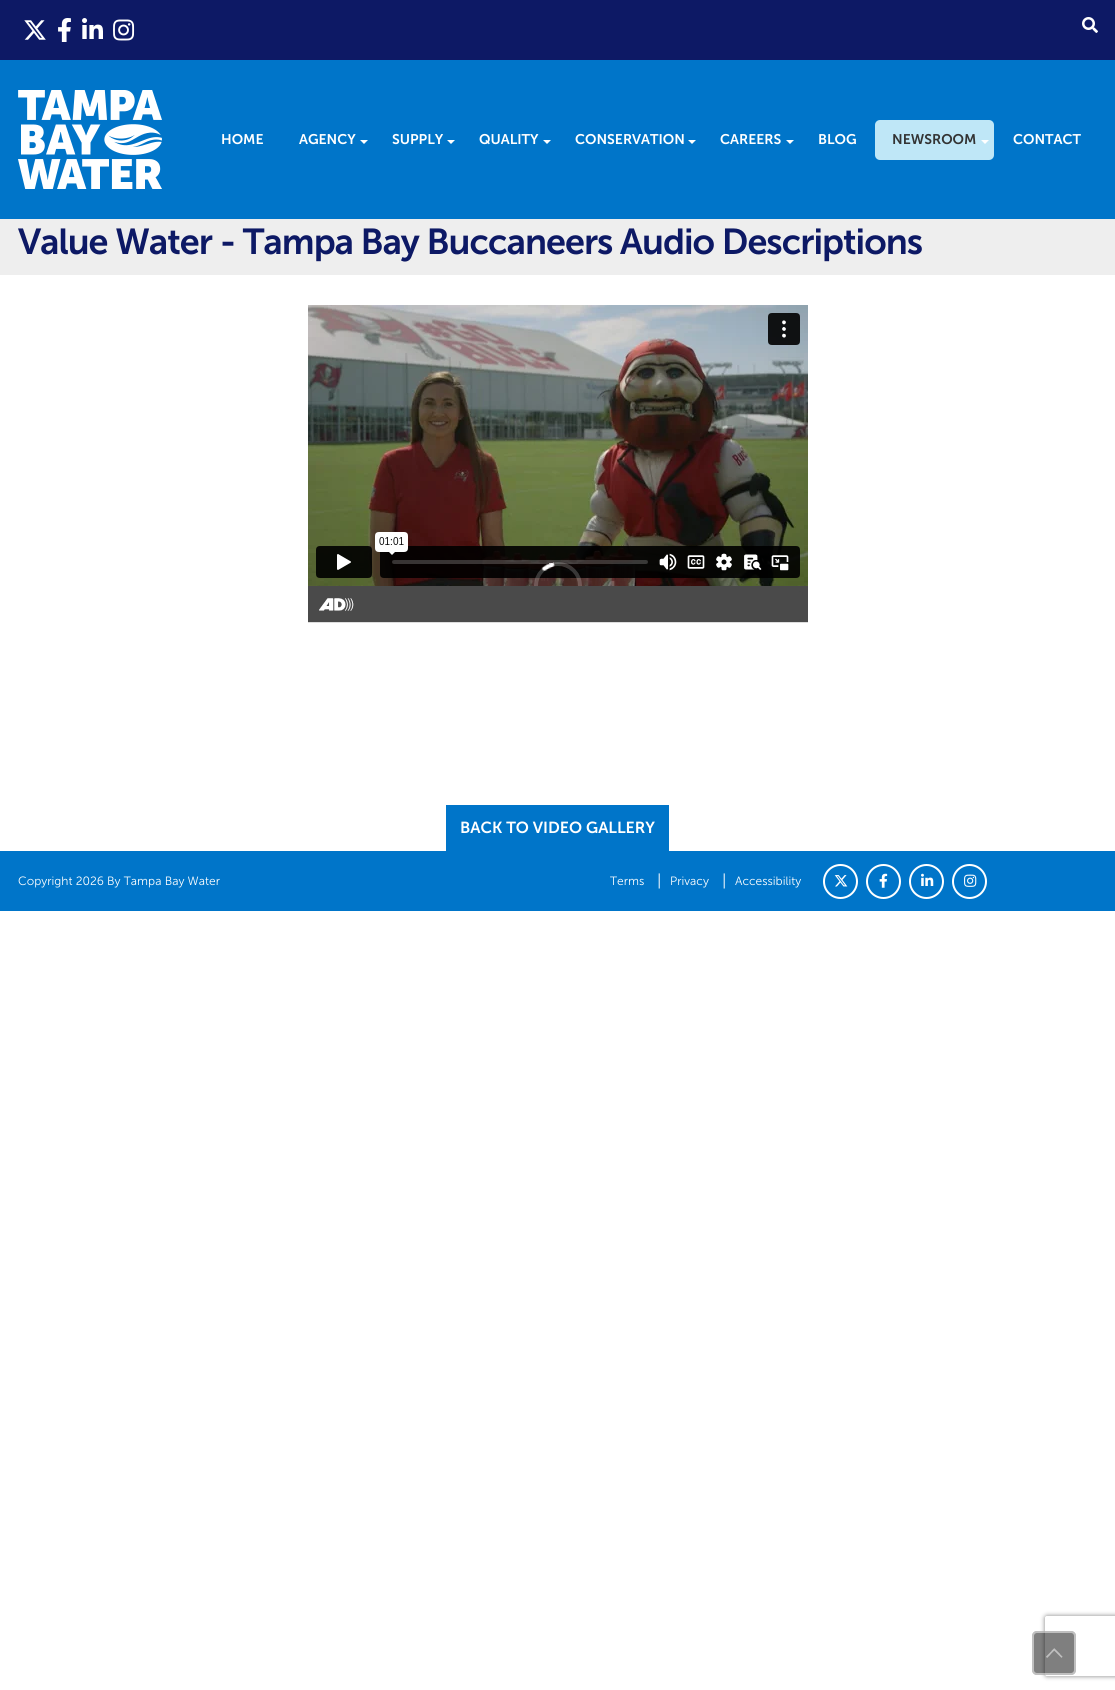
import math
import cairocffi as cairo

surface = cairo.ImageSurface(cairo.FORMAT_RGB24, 1115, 1690)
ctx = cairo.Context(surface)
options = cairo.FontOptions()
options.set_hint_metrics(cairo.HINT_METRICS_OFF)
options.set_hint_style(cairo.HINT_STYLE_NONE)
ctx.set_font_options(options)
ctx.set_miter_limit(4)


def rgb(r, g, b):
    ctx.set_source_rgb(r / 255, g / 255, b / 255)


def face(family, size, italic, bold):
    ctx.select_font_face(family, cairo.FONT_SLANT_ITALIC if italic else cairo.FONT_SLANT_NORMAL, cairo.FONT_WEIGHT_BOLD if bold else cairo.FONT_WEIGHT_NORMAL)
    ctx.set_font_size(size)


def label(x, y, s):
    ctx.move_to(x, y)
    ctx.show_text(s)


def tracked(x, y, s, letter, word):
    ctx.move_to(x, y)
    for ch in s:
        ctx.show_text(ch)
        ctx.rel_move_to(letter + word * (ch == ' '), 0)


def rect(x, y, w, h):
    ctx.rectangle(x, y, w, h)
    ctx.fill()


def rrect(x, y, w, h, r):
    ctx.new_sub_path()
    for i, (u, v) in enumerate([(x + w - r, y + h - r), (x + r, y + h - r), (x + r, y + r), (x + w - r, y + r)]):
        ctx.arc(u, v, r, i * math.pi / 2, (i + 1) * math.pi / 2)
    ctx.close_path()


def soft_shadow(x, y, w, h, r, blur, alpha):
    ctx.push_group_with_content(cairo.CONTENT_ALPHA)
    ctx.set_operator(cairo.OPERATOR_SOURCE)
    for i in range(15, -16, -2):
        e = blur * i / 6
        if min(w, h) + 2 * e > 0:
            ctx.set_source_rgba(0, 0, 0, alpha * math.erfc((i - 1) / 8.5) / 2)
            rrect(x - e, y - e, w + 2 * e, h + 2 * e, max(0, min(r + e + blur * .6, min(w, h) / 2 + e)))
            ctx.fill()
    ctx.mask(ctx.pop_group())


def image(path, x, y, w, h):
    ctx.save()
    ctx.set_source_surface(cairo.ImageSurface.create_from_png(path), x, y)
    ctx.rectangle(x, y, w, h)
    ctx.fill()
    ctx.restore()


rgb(255, 255, 255)
ctx.paint()
rgb(0, 117, 201)
rect(0, 60, 1115, 159)
rgb(13, 25, 101)
rect(0, 0, 1115, 60)
image('image0.png', 24, 20, 22, 20)
image('image1.png', 58, 18, 13, 24)
image('image2.png', 82, 18, 21, 21)
image('image3.png', 113, 19, 22, 22)
image('image4.png', 1082, 17, 16, 16)
image('image5.png', 18, 90, 144, 99)
face('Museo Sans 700 SemiBold', 14, 0, 0)
rgb(255, 255, 255)
label(221, 144, 'HOME')
label(299, 144, 'AGENCY')
ctx.new_path()
ctx.move_to(360, 140)
ctx.line_to(368, 140)
ctx.line_to(364, 144)
ctx.close_path()
ctx.fill()
label(392, 144, 'SUPPLY')
ctx.new_path()
ctx.move_to(447, 140)
ctx.line_to(455, 140)
ctx.line_to(451, 144)
ctx.close_path()
ctx.fill()
label(479, 144, 'QUALITY')
ctx.new_path()
ctx.move_to(543, 140)
ctx.line_to(551, 140)
ctx.line_to(547, 144)
ctx.close_path()
ctx.fill()
label(575, 144, 'CONSERVATION')
ctx.new_path()
ctx.move_to(688, 140)
ctx.line_to(696, 140)
ctx.line_to(692, 144)
ctx.close_path()
ctx.fill()
label(720, 144, 'CAREERS')
ctx.new_path()
ctx.move_to(786, 140)
ctx.line_to(794, 140)
ctx.line_to(790, 144)
ctx.close_path()
ctx.fill()
label(818, 144, 'BLOG')
rgb(191, 231, 247)
rrect(875, 120, 119, 40, 5)
ctx.fill()
rgb(51, 51, 51)
label(892, 144, 'NEWSROOM')
rgb(255, 255, 255)
ctx.new_path()
ctx.move_to(981, 140)
ctx.line_to(989, 140)
ctx.line_to(985, 144)
ctx.close_path()
ctx.fill()
label(1013, 144, 'CONTACT')
rgb(238, 238, 238)
rect(0, 219, 1115, 56)
face('Museo Sans 700 SemiBold', 36, 0, 0)
rgb(13, 25, 101)
tracked(18, 254, 'Value Water - Tampa Bay Buccaneers Audio Descriptions', -1, 0)
image('image6.png', 308, 305, 500, 318)
rgb(0, 117, 201)
rect(446, 805, 223, 46)
face('Museo Sans 700 SemiBold', 16, 0, 0)
rgb(255, 255, 255)
label(460, 833, 'BACK TO VIDEO GALLERY')
rgb(0, 117, 201)
rect(0, 851, 1115, 60)
face('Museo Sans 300 Light', 12, 0, 0)
rgb(255, 255, 255)
label(18, 885, 'Copyright 2026 By Tampa Bay Water')
label(610, 885, 'Terms')
face('Museo Sans 300 Light', 16, 0, 0)
label(657, 886, '|')
face('Museo Sans 300 Light', 12, 0, 0)
label(670, 885, 'Privacy')
face('Museo Sans 300 Light', 16, 0, 0)
label(722, 886, '|')
face('Museo Sans 300 Light', 12, 0, 0)
label(735, 885, 'Accessibility')
ctx.new_path()
ctx.arc(840.5, 881.5, 16.5, 0, 2 * math.pi)
ctx.stroke()
image('image7.png', 834, 875, 14, 12)
ctx.arc(883.5, 881.5, 16.5, 0, 2 * math.pi)
ctx.stroke()
image('image8.png', 879, 873, 9, 15)
ctx.arc(926.5, 881.5, 16.5, 0, 2 * math.pi)
ctx.stroke()
image('image9.png', 921, 873, 13, 13)
ctx.arc(969.5, 881.5, 16.5, 0, 2 * math.pi)
ctx.stroke()
image('image10.png', 964, 874, 13, 13)
ctx.save()
ctx.set_fill_rule(cairo.FILL_RULE_EVEN_ODD)
ctx.new_path()
ctx.move_to(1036, 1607)
ctx.line_to(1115, 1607)
ctx.line_to(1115, 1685)
ctx.line_to(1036, 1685)
ctx.close_path()
ctx.move_to(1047, 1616)
ctx.line_to(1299, 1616)
ctx.curve_to(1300, 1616, 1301, 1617, 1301, 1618)
ctx.line_to(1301, 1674)
ctx.curve_to(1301, 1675, 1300, 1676, 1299, 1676)
ctx.line_to(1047, 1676)
ctx.curve_to(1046, 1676, 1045, 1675, 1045, 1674)
ctx.line_to(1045, 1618)
ctx.curve_to(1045, 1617, 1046, 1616, 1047, 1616)
ctx.close_path()
ctx.clip()
rgb(128, 128, 128)
soft_shadow(1045, 1616, 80, 60, 2, 2.5, 1)
ctx.restore()
ctx.set_source_rgba(0, 0, 0, 0.5)
rrect(1032, 1631, 44, 44, 5)
ctx.fill()
rrect(1033, 1632, 42, 42, 4)
ctx.set_source_rgba(1, 1, 1, 0.5)
ctx.stroke()
image('image11.png', 1046, 1648, 17, 10)
surface.write_to_png('render.png')
